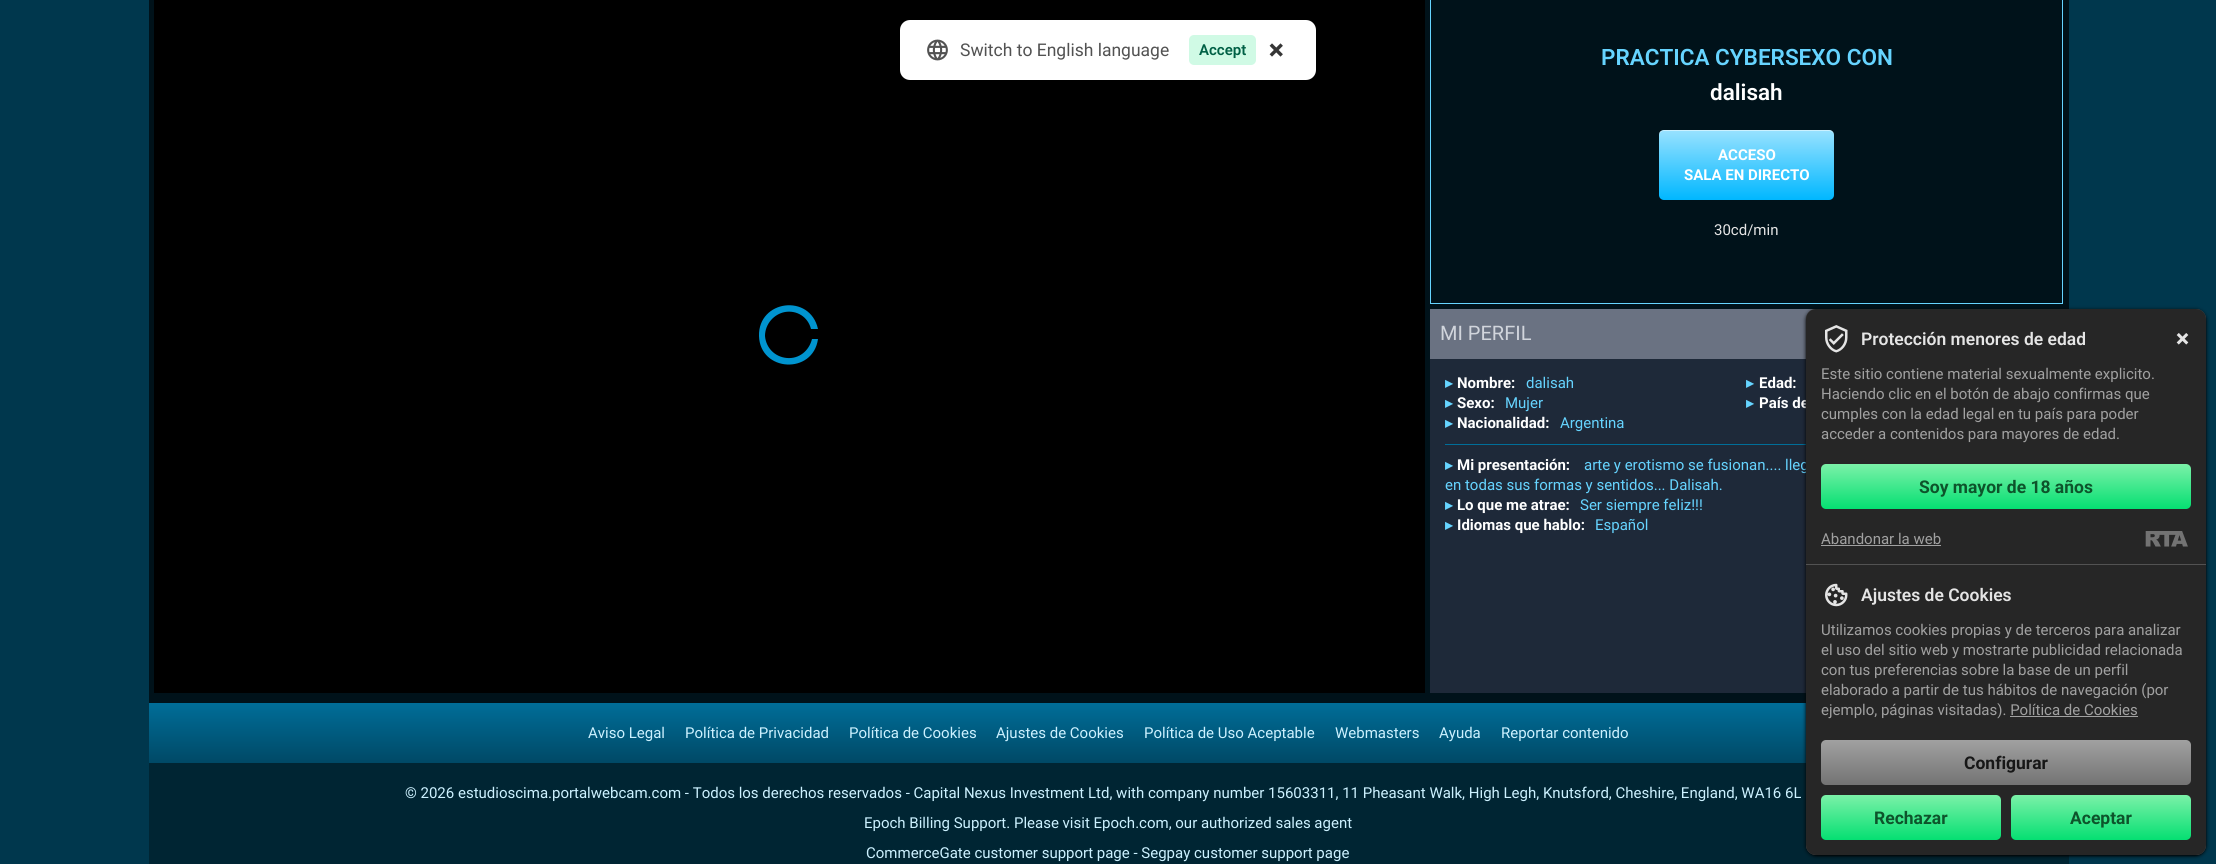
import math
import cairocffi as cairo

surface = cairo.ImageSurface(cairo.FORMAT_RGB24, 2216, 864)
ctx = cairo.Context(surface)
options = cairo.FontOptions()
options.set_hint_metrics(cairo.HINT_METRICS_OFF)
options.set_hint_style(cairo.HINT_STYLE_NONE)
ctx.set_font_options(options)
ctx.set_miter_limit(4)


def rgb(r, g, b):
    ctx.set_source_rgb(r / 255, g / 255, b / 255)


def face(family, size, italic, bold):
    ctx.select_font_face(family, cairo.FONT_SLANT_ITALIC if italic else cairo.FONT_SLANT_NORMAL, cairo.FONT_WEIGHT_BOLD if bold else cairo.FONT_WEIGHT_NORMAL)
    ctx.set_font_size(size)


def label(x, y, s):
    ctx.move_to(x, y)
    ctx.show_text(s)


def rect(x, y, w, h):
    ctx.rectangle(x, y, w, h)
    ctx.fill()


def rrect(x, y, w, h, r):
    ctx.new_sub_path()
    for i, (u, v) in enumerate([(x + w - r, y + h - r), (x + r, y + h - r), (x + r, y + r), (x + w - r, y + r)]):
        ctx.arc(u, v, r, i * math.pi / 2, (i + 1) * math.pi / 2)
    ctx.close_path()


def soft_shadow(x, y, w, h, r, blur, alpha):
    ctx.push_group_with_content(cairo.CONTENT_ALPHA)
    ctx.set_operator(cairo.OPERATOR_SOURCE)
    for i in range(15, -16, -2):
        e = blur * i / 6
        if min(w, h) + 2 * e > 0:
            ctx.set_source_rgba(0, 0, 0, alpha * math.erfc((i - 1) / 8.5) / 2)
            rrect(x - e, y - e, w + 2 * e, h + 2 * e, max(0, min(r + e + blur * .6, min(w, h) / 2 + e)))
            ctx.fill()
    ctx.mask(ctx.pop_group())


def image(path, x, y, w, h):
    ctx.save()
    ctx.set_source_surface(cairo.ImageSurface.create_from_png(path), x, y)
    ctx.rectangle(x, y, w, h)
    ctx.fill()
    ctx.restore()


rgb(0, 55, 77)
ctx.paint()
rgb(0, 18, 26)
rect(149, 0, 1920, 703)
rgb(0, 0, 0)
rect(154, 0, 1271, 693)
rgb(255, 255, 255)
rrect(900, 20, 416, 60, 10)
ctx.fill()
image('image0.png', 927, 39, 21, 22)
face('Roboto', 17.5, 0, 0)
rgb(82, 82, 82)
label(960, 56, 'Switch to English language')
rgb(208, 250, 229)
rrect(1189, 35, 67, 30, 5)
ctx.fill()
face('Roboto SemiBold', 15, 0, 0)
rgb(0, 96, 69)
label(1199, 55, 'Accept')
image('image1.png', 1269, 43, 14, 14)
rgb(0, 148, 207)
ctx.new_path()
ctx.move_to(759, 336)
ctx.curve_to(758, 300, 810, 293, 818, 329)
ctx.line_to(811, 329)
ctx.curve_to(808, 317, 797, 310, 785, 312)
ctx.curve_to(774, 314, 765, 324, 765, 336)
ctx.curve_to(766, 348, 775, 357, 787, 358)
ctx.curve_to(799, 359, 809, 351, 812, 339)
ctx.line_to(818, 339)
ctx.curve_to(813, 375, 760, 372, 759, 336)
ctx.fill()
ctx.rectangle(1430.5, -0.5, 632, 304)
rgb(102, 212, 255)
ctx.set_line_width(1)
ctx.stroke()
face('Roboto SemiBold', 22.5, 0, 0)
label(1601, 65, 'PRACTICA CYBERSEXO CON')
rgb(255, 255, 255)
label(1710, 100, 'dalisah')
gradient = cairo.LinearGradient(1746, 130, 1746, 200)
gradient.add_color_stop_rgba(0, 0.6, 0.886, 1, 1)
gradient.add_color_stop_rgba(1, 0, 0.718, 1, 1)
ctx.set_source(gradient)
rrect(1659, 130, 175, 70, 5)
ctx.fill()
ctx.set_source_rgba(1, 1, 1, 0.5)
ctx.new_path()
ctx.move_to(1664, 131)
ctx.line_to(1829, 131)
ctx.curve_to(1832, 131, 1834, 133, 1834, 136)
ctx.curve_to(1834, 133, 1833, 131, 1830, 130)
ctx.line_to(1664, 130)
ctx.line_to(1661, 131)
ctx.curve_to(1659, 132, 1659, 134, 1659, 136)
ctx.curve_to(1659, 133, 1661, 131, 1664, 131)
ctx.close_path()
ctx.fill()
face('Roboto', 15, 0, 1)
rgb(255, 255, 255)
label(1718, 160, 'ACCESO')
label(1684, 180, 'SALA EN DIRECTO')
face('Roboto', 15, 0, 0)
rgb(229, 229, 229)
label(1714, 235, '30cd/min')
rgb(106, 114, 130)
rect(1430, 309, 386, 50)
face('Roboto', 20, 0, 0)
rgb(209, 213, 220)
label(1440, 340, 'MI PERFIL')
rgb(30, 41, 57)
rect(1430, 359, 376, 334)
face('DejaVu Sans', 15, 0, 1)
rgb(102, 212, 255)
label(1445, 388, '▸')
face('Roboto', 15, 0, 1)
rgb(255, 255, 255)
label(1457, 388, 'Nombre:')
face('Roboto', 15, 0, 0)
rgb(102, 212, 255)
label(1526, 388, 'dalisah')
face('DejaVu Sans', 15, 0, 1)
label(1746, 388, '▸')
face('Roboto', 15, 0, 1)
rgb(255, 255, 255)
label(1759, 388, 'Edad:')
face('DejaVu Sans', 15, 0, 1)
rgb(102, 212, 255)
label(1445, 408, '▸')
face('Roboto', 15, 0, 1)
rgb(255, 255, 255)
label(1457, 408, 'Sexo:')
face('Roboto', 15, 0, 0)
rgb(102, 212, 255)
label(1505, 408, 'Mujer')
face('DejaVu Sans', 15, 0, 1)
label(1746, 408, '▸')
face('Roboto', 15, 0, 1)
rgb(255, 255, 255)
label(1759, 408, 'País de')
face('DejaVu Sans', 15, 0, 1)
rgb(102, 212, 255)
label(1445, 428, '▸')
face('Roboto', 15, 0, 1)
rgb(255, 255, 255)
label(1457, 428, 'Nacionalidad:')
face('Roboto', 15, 0, 0)
rgb(102, 212, 255)
label(1560, 428, 'Argentina')
rgb(0, 110, 153)
rect(1445, 444, 361, 1)
face('DejaVu Sans', 15, 0, 1)
rgb(102, 212, 255)
label(1445, 470, '▸')
face('Roboto', 15, 0, 1)
rgb(255, 255, 255)
label(1457, 470, 'Mi presentación:')
face('Roboto', 15, 0, 0)
rgb(102, 212, 255)
label(1584, 470, 'arte y erotismo se fusionan.... lleg')
label(1445, 490, 'en todas sus formas y sentidos... Dalisah.')
face('DejaVu Sans', 15, 0, 1)
label(1445, 510, '▸')
face('Roboto', 15, 0, 1)
rgb(255, 255, 255)
label(1457, 510, 'Lo que me atrae:')
face('Roboto', 15, 0, 0)
rgb(102, 212, 255)
label(1580, 510, 'Ser siempre feliz!!!')
face('DejaVu Sans', 15, 0, 1)
label(1445, 530, '▸')
face('Roboto', 15, 0, 1)
rgb(255, 255, 255)
label(1457, 530, 'Idiomas que hablo:')
face('Roboto', 15, 0, 0)
rgb(102, 212, 255)
label(1595, 530, 'Español')
rgb(0, 37, 51)
rect(149, 763, 1920, 101)
gradient = cairo.LinearGradient(1109, 702, 1109, 763)
gradient.add_color_stop_rgba(0, 0, 0.431, 0.6, 1)
gradient.add_color_stop_rgba(1, 0, 0.286, 0.4, 1)
ctx.set_source(gradient)
rect(149, 703, 1657, 60)
rgb(0, 0, 0)
soft_shadow(1808, 311, 397, 544, 9, 1, 1)
soft_shadow(1806, 310, 400, 546, 10, 2, 1)
rgb(82, 82, 82)
rrect(1806, 309, 400, 546, 10)
ctx.fill()
rgb(38, 38, 38)
ctx.new_path()
ctx.move_to(1816, 309)
ctx.line_to(2196, 309)
ctx.curve_to(2201.5, 309, 2206, 313.5, 2206, 319)
ctx.line_to(2206, 564)
ctx.line_to(1806, 564)
ctx.line_to(1806, 319)
ctx.curve_to(1806, 313.5, 1810.5, 309, 1816, 309)
ctx.close_path()
ctx.fill()
image('image2.png', 1825, 325, 23, 28)
face('Roboto SemiBold', 17.5, 0, 0)
rgb(229, 229, 229)
label(1861, 345, 'Protección menores de edad')
image('image3.png', 2176, 333, 13, 12)
face('Roboto', 15, 0, 0)
rgb(161, 161, 161)
label(1821, 379, 'Este sitio contiene material sexualmente explicito.')
label(1821, 399, 'Haciendo clic en el botón de abajo confirmas que')
label(1821, 419, 'cumples con la edad legal en tu país para poder')
label(1821, 439, 'acceder a contenidos para mayores de edad.')
gradient = cairo.LinearGradient(2006, 464, 2006, 509)
gradient.add_color_stop_rgba(0, 0.482, 0.945, 0.659, 1)
gradient.add_color_stop_rgba(1, 0.02, 0.875, 0.447, 1)
ctx.set_source(gradient)
rrect(1821, 464, 370, 45, 5)
ctx.fill()
face('Roboto', 17.5, 0, 1)
rgb(13, 84, 43)
label(1919, 493, 'Soy mayor de 18 años')
face('Roboto', 15, 0, 0)
rgb(161, 161, 161)
label(1821, 544, 'Abandonar la web')
rect(1821, 545, 120, 1)
image('image4.png', 2145, 531, 43, 16)
rgb(38, 38, 38)
ctx.new_path()
ctx.move_to(1806, 565)
ctx.line_to(2206, 565)
ctx.line_to(2206, 845)
ctx.curve_to(2206, 850.5, 2201.5, 855, 2196, 855)
ctx.line_to(1816, 855)
ctx.curve_to(1810.5, 855, 1806, 850.5, 1806, 845)
ctx.close_path()
ctx.fill()
image('image5.png', 1825, 583, 23, 24)
face('Roboto SemiBold', 17.5, 0, 0)
rgb(229, 229, 229)
label(1861, 601, 'Ajustes de Cookies')
face('Roboto', 15, 0, 0)
rgb(161, 161, 161)
label(1821, 635, 'Utilizamos cookies propias y de terceros para analizar')
label(1821, 655, 'el uso del sitio web y mostrarte publicidad relacionada')
label(1821, 675, 'con tus preferencias sobre la base de un perfil')
label(1821, 695, 'elaborado a partir de tus hábitos de navegación (por')
label(1821, 715, 'ejemplo, páginas visitadas). Política de Cookies')
rect(2010, 716, 128, 1)
gradient = cairo.LinearGradient(2006, 740, 2006, 785)
gradient.add_color_stop_rgba(0, 0.631, 0.631, 0.631, 1)
gradient.add_color_stop_rgba(1, 0.451, 0.451, 0.451, 1)
ctx.set_source(gradient)
rrect(1821, 740, 370, 45, 5)
ctx.fill()
face('Roboto', 17.5, 0, 1)
rgb(23, 23, 23)
label(1964, 769, 'Configurar')
gradient = cairo.LinearGradient(1911, 795, 1911, 840)
gradient.add_color_stop_rgba(0, 0.482, 0.945, 0.659, 1)
gradient.add_color_stop_rgba(1, 0.02, 0.875, 0.447, 1)
ctx.set_source(gradient)
rrect(1821, 795, 180, 45, 5)
ctx.fill()
rgb(13, 84, 43)
label(1874, 824, 'Rechazar')
gradient = cairo.LinearGradient(2101, 795, 2101, 840)
gradient.add_color_stop_rgba(0, 0.482, 0.945, 0.659, 1)
gradient.add_color_stop_rgba(1, 0.02, 0.875, 0.447, 1)
ctx.set_source(gradient)
rrect(2011, 795, 180, 45, 5)
ctx.fill()
rgb(13, 84, 43)
label(2070, 824, 'Aceptar')
face('Roboto', 15, 0, 0)
rgb(204, 241, 255)
label(588, 738, 'Aviso Legal')
label(685, 738, 'Política de Privacidad')
label(849, 738, 'Política de Cookies')
label(996, 738, 'Ajustes de Cookies')
label(1144, 738, 'Política de Uso Aceptable')
label(1335, 738, 'Webmasters')
label(1439, 738, 'Ayuda')
label(1501, 738, 'Reportar contenido')
label(405, 798, '© 2026 estudioscima.portalwebcam.com - Todos los derechos reservados - Capital Nexus Investment Ltd, with company number 15603311, 11 Pheasant Walk, High Legh, Knutsford, Cheshire, England, WA16 6L')
label(864, 828, 'Epoch Billing Support. Please visit Epoch.com, our authorized sales agent')
label(866, 858, 'CommerceGate customer support page - Segpay customer support page')
surface.write_to_png('render.png')
